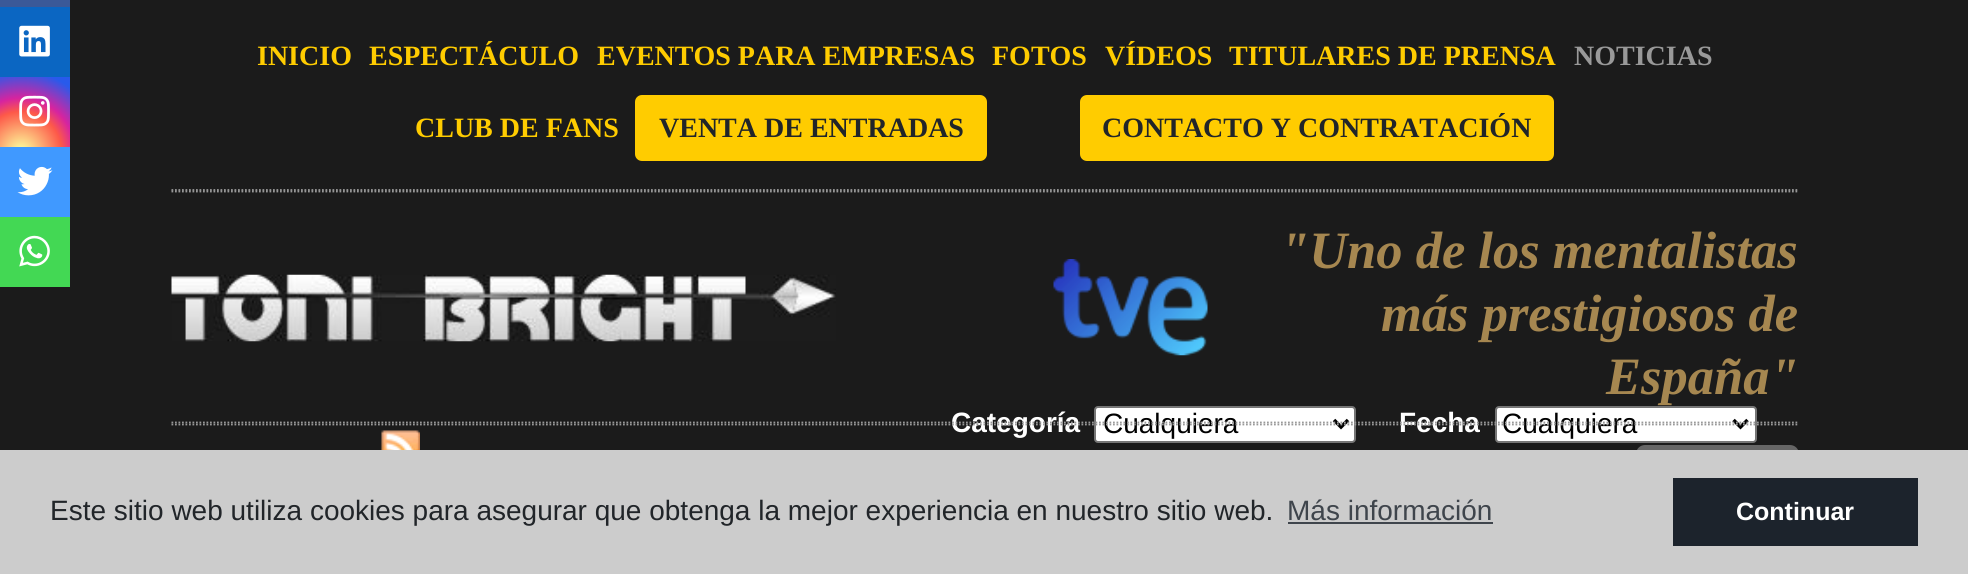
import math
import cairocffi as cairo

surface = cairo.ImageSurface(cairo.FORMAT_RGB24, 1968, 574)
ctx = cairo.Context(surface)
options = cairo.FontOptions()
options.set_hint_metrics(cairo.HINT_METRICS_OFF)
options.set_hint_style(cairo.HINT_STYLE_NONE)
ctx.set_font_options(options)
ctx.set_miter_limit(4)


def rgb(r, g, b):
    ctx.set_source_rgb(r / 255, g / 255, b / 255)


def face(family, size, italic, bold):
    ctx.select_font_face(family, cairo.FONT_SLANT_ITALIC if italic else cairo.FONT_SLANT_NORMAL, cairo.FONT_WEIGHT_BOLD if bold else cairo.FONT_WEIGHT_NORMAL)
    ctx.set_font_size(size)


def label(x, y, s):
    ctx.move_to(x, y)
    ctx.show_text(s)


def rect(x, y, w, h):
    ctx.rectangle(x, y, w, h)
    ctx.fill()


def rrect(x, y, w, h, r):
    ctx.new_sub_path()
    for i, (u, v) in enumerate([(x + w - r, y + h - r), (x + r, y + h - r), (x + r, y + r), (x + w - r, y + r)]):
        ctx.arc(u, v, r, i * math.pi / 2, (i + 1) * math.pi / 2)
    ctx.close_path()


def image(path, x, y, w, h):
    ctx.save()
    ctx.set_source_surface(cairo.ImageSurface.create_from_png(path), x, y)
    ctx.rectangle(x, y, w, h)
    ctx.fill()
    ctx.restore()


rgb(27, 27, 27)
ctx.paint()
rgb(59, 89, 152)
rect(0, 0, 70, 7)
rgb(11, 102, 194)
rect(0, 7, 70, 70)
image('image0.png', 19, 25, 31, 32)
gradient = cairo.RadialGradient(21, 152, 0, 21, 152, 90)
gradient.add_color_stop_rgba(0, 0.992, 0.957, 0.592, 1)
gradient.add_color_stop_rgba(0.05, 0.992, 0.957, 0.592, 1)
gradient.add_color_stop_rgba(0.45, 0.992, 0.349, 0.286, 1)
gradient.add_color_stop_rgba(0.6, 0.839, 0.141, 0.624, 1)
gradient.add_color_stop_rgba(0.9, 0.157, 0.353, 0.922, 1)
ctx.set_source(gradient)
rect(0, 77, 70, 70)
image('image1.png', 19, 95, 31, 32)
rgb(64, 153, 255)
rect(0, 147, 70, 70)
image('image2.png', 17, 166, 36, 30)
rgb(67, 216, 84)
rect(0, 217, 70, 70)
image('image3.png', 19, 235, 31, 32)
face('Liberation Serif', 28, 0, 1)
rgb(255, 204, 0)
label(257, 65, 'INICIO')
label(369, 65, 'ESPECTÁCULO')
label(597, 65, 'EVENTOS PARA EMPRESAS')
label(992, 65, 'FOTOS')
label(1105, 65, 'VÍDEOS')
label(1229, 65, 'TITULARES DE PRENSA')
rgb(153, 153, 153)
label(1574, 65, 'NOTICIAS')
rgb(255, 204, 0)
label(415, 137, 'CLUB DE FANS')
rrect(636, 96, 350, 64, 6)
ctx.fill_preserve()
ctx.stroke()
rgb(33, 37, 41)
label(659, 137, 'VENTA DE ENTRADAS')
rgb(255, 204, 0)
rrect(1081, 96, 472, 64, 6)
ctx.fill_preserve()
ctx.stroke()
rgb(33, 37, 41)
label(1102, 137, 'CONTACTO Y CONTRATACIÓN')
ctx.new_path()
ctx.move_to(171.5, 190)
ctx.line_to(1799, 190)
rgb(153, 153, 153)
ctx.set_line_width(1.8)
ctx.set_dash([1.75, 1.75])
ctx.stroke()
ctx.new_path()
ctx.move_to(171.5, 191.5)
ctx.line_to(1799, 191.5)
ctx.stroke()
image('image4.png', 171, 274, 665, 68)
image('image5.png', 1053, 259, 155, 97)
face('Liberation Serif', 52.5, 1, 1)
rgb(166, 135, 80)
label(1280, 268, '"Uno de los mentalistas')
label(1381, 331, 'más prestigiosos de')
label(1606, 394, 'España"')
face('Liberation Sans', 28, 0, 1)
rgb(255, 255, 255)
label(951, 432, 'Categoría')
rrect(1095, 407, 260, 35, 3)
ctx.fill_preserve()
rgb(118, 118, 118)
ctx.set_line_width(2)
ctx.set_dash([])
ctx.stroke()
ctx.new_path()
ctx.move_to(1334, 420)
ctx.line_to(1341, 427)
ctx.line_to(1348, 420)
rgb(0, 0, 0)
ctx.set_line_width(3.5)
ctx.stroke()
face('Liberation Sans', 28, 0, 0)
label(1103, 433, 'Cualquiera')
face('Liberation Sans', 28, 0, 1)
rgb(255, 255, 255)
label(1399, 432, 'Fecha')
rrect(1496, 407, 260, 35, 3)
ctx.fill_preserve()
rgb(118, 118, 118)
ctx.set_line_width(2)
ctx.stroke()
ctx.new_path()
ctx.move_to(1733.5, 420)
ctx.line_to(1740.5, 427)
ctx.line_to(1747.5, 420)
rgb(0, 0, 0)
ctx.set_line_width(3.5)
ctx.stroke()
face('Liberation Sans', 28, 0, 0)
label(1502, 433, 'Cualquiera')
ctx.new_path()
ctx.move_to(171.5, 422.5)
ctx.line_to(1799, 422.5)
rgb(153, 153, 153)
ctx.set_line_width(1.8)
ctx.set_dash([1.75, 1.75])
ctx.stroke()
ctx.new_path()
ctx.move_to(171.5, 424.5)
ctx.line_to(1799, 424.5)
ctx.stroke()
image('image6.png', 381, 430, 39, 20)
rgb(102, 102, 102)
rrect(1636, 445, 163, 49, 9)
ctx.fill()
rgb(204, 204, 204)
rect(0, 450, 1968, 124)
rgb(33, 37, 41)
label(50, 520, 'Este sitio web utiliza cookies para asegurar que obtenga la mejor experiencia en nuestro sitio web.')
rgb(63, 69, 76)
label(1287, 520, 'Más información')
rect(1288, 522, 205, 2)
rgb(28, 35, 44)
rect(1673, 478, 245, 68)
face('Liberation Sans', 25, 0, 1)
rgb(255, 255, 255)
label(1736, 520, 'Continuar')
surface.write_to_png('render.png')
